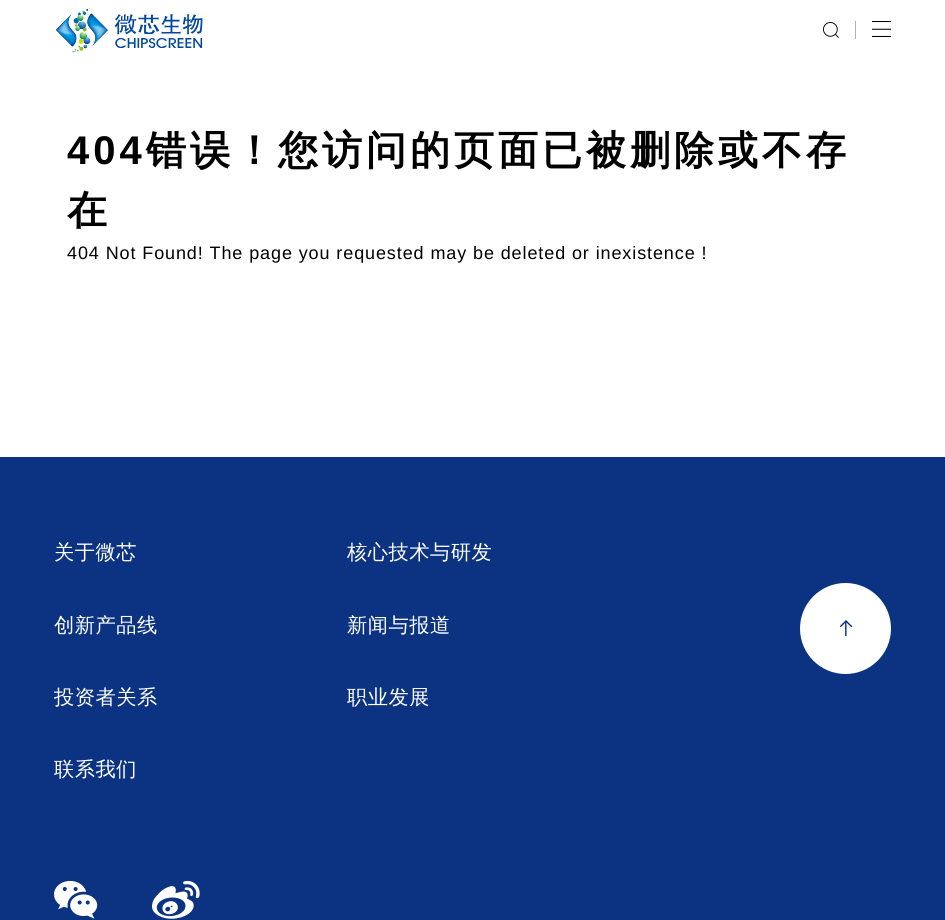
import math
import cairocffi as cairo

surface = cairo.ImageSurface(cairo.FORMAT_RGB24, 945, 920)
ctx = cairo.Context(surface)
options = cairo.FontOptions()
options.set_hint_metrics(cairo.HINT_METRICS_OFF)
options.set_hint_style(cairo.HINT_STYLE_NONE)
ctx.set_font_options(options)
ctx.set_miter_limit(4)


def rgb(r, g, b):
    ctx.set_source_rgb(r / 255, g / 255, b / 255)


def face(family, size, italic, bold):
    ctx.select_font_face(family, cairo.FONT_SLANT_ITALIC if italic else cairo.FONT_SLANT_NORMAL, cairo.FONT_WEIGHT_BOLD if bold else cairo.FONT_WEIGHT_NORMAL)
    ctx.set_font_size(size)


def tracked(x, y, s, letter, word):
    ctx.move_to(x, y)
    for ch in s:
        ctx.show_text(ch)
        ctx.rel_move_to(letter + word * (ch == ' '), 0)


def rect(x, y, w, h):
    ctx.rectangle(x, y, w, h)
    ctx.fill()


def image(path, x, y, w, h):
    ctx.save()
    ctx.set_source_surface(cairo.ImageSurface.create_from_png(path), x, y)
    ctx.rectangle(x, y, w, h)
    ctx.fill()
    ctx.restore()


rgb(255, 255, 255)
ctx.paint()
image('image0.png', 56, 7, 147, 46)
image('image1.png', 823, 22, 16, 16)
rgb(179, 179, 179)
rect(855, 21, 1, 18)
image('image2.png', 872, 21, 20, 16)
face('Liberation Sans', 40, 0, 1)
rgb(0, 0, 0)
tracked(67, 164, '404', 4, 0)
face('WenQuanYi Zen Hei', 40, 0, 1)
tracked(146, 164, '错误！您访问的页面已被删除或不存', 4, 0)
tracked(67, 224, '在', 4, 0)
face('Liberation Sans', 18, 0, 0)
tracked(67, 259, '404 Not Found! The page you requested may be deleted or inexistence !', 0.9, 0)
rgb(11, 51, 129)
rect(0, 457, 945, 463)
face('WenQuanYi Zen Hei Medium', 20.25, 0, 0)
rgb(255, 255, 255)
tracked(54, 559, '关于微芯', 0.5, 0)
tracked(347, 559, '核心技术与研发', 0.5, 0)
tracked(54, 632, '创新产品线', 0.5, 0)
tracked(347, 632, '新闻与报道', 0.5, 0)
tracked(54, 704, '投资者关系', 0.5, 0)
tracked(347, 704, '职业发展', 0.5, 0)
tracked(54, 776, '联系我们', 0.5, 0)
ctx.new_path()
ctx.arc(845.5, 628.5, 45.5, 0, 2 * math.pi)
ctx.fill()
image('image3.png', 839, 620, 14, 16)
image('image4.png', 54, 880, 44, 39)
image('image5.png', 152, 880, 48, 39)
surface.write_to_png('render.png')
